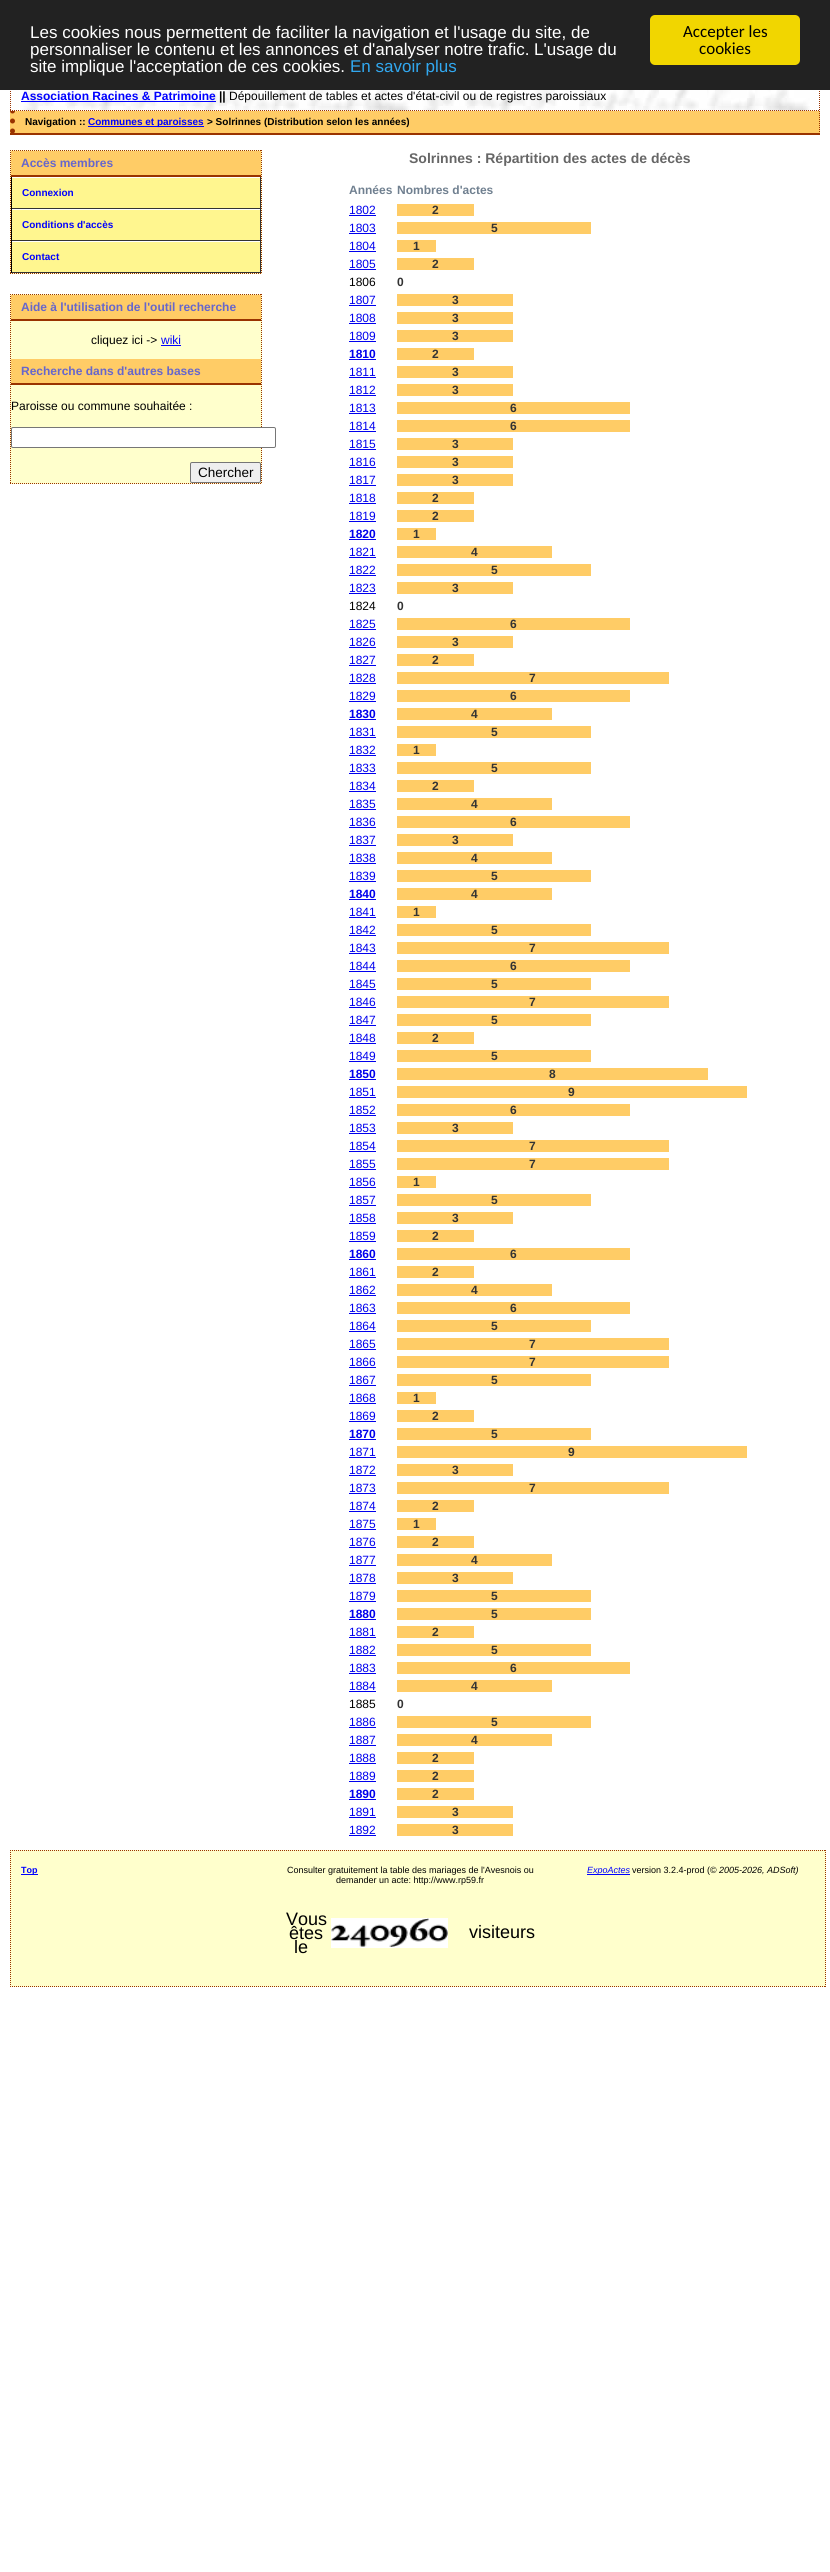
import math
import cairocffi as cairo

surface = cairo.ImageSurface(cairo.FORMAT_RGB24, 830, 2572)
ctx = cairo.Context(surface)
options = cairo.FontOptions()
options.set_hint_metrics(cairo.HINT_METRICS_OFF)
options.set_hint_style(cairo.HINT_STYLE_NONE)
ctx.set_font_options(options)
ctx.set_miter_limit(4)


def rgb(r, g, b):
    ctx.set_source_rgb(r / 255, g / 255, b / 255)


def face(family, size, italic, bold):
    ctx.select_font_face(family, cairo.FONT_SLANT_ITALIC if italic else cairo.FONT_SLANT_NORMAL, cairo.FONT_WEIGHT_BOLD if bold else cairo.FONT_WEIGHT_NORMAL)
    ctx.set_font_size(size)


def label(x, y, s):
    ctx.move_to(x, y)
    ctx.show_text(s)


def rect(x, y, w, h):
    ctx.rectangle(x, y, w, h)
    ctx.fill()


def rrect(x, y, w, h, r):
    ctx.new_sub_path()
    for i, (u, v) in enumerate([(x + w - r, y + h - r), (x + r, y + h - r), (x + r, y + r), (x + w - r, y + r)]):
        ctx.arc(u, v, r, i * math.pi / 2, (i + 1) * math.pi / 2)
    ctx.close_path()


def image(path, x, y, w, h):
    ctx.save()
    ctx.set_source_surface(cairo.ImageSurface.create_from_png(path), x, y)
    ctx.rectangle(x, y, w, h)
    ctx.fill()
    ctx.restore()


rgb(255, 255, 255)
ctx.paint()
ctx.new_path()
ctx.move_to(819.5, 81)
ctx.line_to(819.5, 111)
rgb(153, 51, 0)
ctx.set_line_width(1)
ctx.set_dash([1, 1])
ctx.stroke()
rgb(255, 204, 102)
rect(10, 111, 810, 22)
ctx.new_path()
ctx.move_to(819.5, 111)
ctx.line_to(819.5, 135)
rgb(153, 51, 0)
ctx.stroke()
rect(10, 133, 810, 2)
ctx.new_path()
ctx.move_to(12.5, 111)
ctx.line_to(12.5, 135)
ctx.set_line_width(5)
ctx.set_line_cap(cairo.LINE_CAP_ROUND)
ctx.set_dash([0, 10])
ctx.stroke()
image('image0.png', 10, 90, 800, 21)
ctx.new_path()
ctx.move_to(10.5, 81)
ctx.line_to(10.5, 111)
ctx.set_line_width(1)
ctx.set_line_cap(cairo.LINE_CAP_BUTT)
ctx.set_dash([1, 1])
ctx.stroke()
rgb(34, 34, 34)
rect(0, 0, 830, 90)
face('Liberation Sans', 17, 0, 0)
rgb(255, 255, 255)
label(30, 38, 'Les cookies nous permettent de faciliter la navigation et l\'usage du site, de')
label(30, 55, 'personnaliser le contenu et les annonces et d\'analyser notre trafic. L\'usage du')
label(30, 72, 'site implique l\'acceptation de ces cookies.')
rgb(49, 168, 240)
label(350, 72, 'En savoir plus')
rgb(241, 214, 0)
rrect(650, 15, 150, 50, 5)
ctx.fill()
face('Carlito', 17, 0, 0)
rgb(0, 0, 0)
label(683, 37, 'Accepter les')
label(699, 54, 'cookies')
ctx.new_path()
ctx.move_to(10, 110.5)
ctx.line_to(820, 110.5)
rgb(153, 51, 0)
ctx.stroke()
face('Liberation Sans', 12, 0, 1)
rgb(0, 0, 255)
label(21, 100, 'Association Racines & Patrimoine')
rect(21, 101, 195, 1)
rgb(0, 0, 0)
label(219, 100, '||')
face('Liberation Sans', 12, 0, 0)
label(229, 100, 'Dépouillement de tables et actes d\'état-civil ou de registres paroissiaux')
face('Liberation Sans', 10, 0, 1)
label(25, 125, 'Navigation ::')
rgb(0, 0, 255)
rect(88, 126, 116, 1)
label(88, 125, 'Communes et paroisses')
rgb(0, 0, 0)
label(207, 125, '> Solrinnes (Distribution selon les années)')
rgb(255, 255, 204)
rect(10, 150, 252, 124)
ctx.new_path()
ctx.move_to(10, 150.5)
ctx.line_to(262, 150.5)
rgb(153, 51, 0)
ctx.stroke()
ctx.new_path()
ctx.move_to(261.5, 150)
ctx.line_to(261.5, 274)
ctx.stroke()
ctx.new_path()
ctx.move_to(10, 273.5)
ctx.line_to(262, 273.5)
ctx.stroke()
ctx.new_path()
ctx.move_to(10.5, 150)
ctx.line_to(10.5, 274)
ctx.stroke()
rgb(255, 204, 102)
rect(11, 151, 250, 24)
rgb(153, 51, 0)
rect(11, 175, 250, 2)
face('Liberation Sans', 12, 0, 1)
rgb(102, 102, 204)
label(21, 167, 'Accès membres')
rgb(255, 246, 143)
rect(12, 178, 248, 30)
rgb(255, 255, 255)
rect(11, 177, 250, 1)
rgb(51, 51, 51)
rect(260, 177, 1, 32)
rect(11, 208, 250, 1)
rgb(0, 0, 0)
rect(11, 177, 1, 32)
face('Liberation Sans', 10, 0, 1)
rgb(0, 0, 255)
label(22, 196, 'Connexion')
rgb(255, 246, 143)
rect(12, 210, 248, 30)
rgb(255, 255, 255)
rect(11, 209, 250, 1)
rgb(51, 51, 51)
rect(260, 209, 1, 32)
rect(11, 240, 250, 1)
rgb(0, 0, 0)
rect(11, 209, 1, 32)
rgb(0, 0, 255)
label(22, 228, 'Conditions d\'accès')
rgb(255, 246, 143)
rect(12, 242, 248, 30)
rgb(255, 255, 255)
rect(11, 241, 250, 1)
rgb(51, 51, 51)
rect(260, 241, 1, 32)
rect(11, 272, 250, 1)
rgb(0, 0, 0)
rect(11, 241, 1, 32)
rgb(0, 0, 255)
label(22, 260, 'Contact')
rgb(255, 255, 204)
rect(10, 294, 252, 190)
ctx.new_path()
ctx.move_to(10, 294.5)
ctx.line_to(262, 294.5)
rgb(153, 51, 0)
ctx.stroke()
ctx.new_path()
ctx.move_to(261.5, 294)
ctx.line_to(261.5, 484)
ctx.stroke()
ctx.new_path()
ctx.move_to(10, 483.5)
ctx.line_to(262, 483.5)
ctx.stroke()
ctx.new_path()
ctx.move_to(10.5, 294)
ctx.line_to(10.5, 484)
ctx.stroke()
rgb(255, 204, 102)
rect(11, 295, 250, 24)
rgb(153, 51, 0)
rect(11, 319, 250, 2)
face('Liberation Sans', 12, 0, 1)
rgb(102, 102, 204)
label(21, 311, 'Aide à l\'utilisation de l\'outil recherche')
face('Liberation Sans', 12, 0, 0)
rgb(0, 0, 0)
label(91, 344, 'cliquez ici ->')
rgb(0, 0, 255)
label(161, 344, 'wiki')
rect(161, 345, 20, 1)
rgb(255, 204, 102)
rect(11, 359, 250, 24)
rgb(153, 51, 0)
rect(11, 383, 250, 2)
face('Liberation Sans', 12, 0, 1)
rgb(102, 102, 204)
label(21, 375, 'Recherche dans d\'autres bases')
face('Liberation Sans', 12, 0, 0)
rgb(0, 0, 0)
label(11, 410, 'Paroisse ou commune souhaitée :')
rgb(255, 255, 255)
rrect(11.5, 427.5, 264, 20, 1.5)
ctx.fill_preserve()
rgb(118, 118, 118)
ctx.set_dash([])
ctx.stroke()
rgb(239, 239, 239)
rrect(190.5, 462.5, 70, 20, 1.5)
ctx.fill_preserve()
rgb(118, 118, 118)
ctx.stroke()
face('Liberation Sans', 13.5, 0, 0)
rgb(0, 0, 0)
label(198, 477, 'Chercher')
face('Liberation Sans', 14, 0, 1)
rgb(102, 102, 102)
label(409, 163, 'Solrinnes : Répartition des actes de décès')
face('Liberation Sans', 12, 0, 1)
rgb(112, 128, 144)
label(349, 194, 'Années')
label(397, 194, 'Nombres d\'actes')
face('Liberation Sans', 12, 0, 0)
rgb(0, 0, 238)
label(349, 214, '1802')
rect(349, 215, 27, 1)
rgb(255, 204, 102)
rect(397, 204, 77, 12)
face('Liberation Sans', 12, 0, 1)
rgb(51, 51, 51)
label(432, 214, '2')
face('Liberation Sans', 12, 0, 0)
rgb(0, 0, 238)
label(349, 232, '1803')
rect(349, 233, 27, 1)
rgb(255, 204, 102)
rect(397, 222, 194, 12)
face('Liberation Sans', 12, 0, 1)
rgb(51, 51, 51)
label(491, 232, '5')
face('Liberation Sans', 12, 0, 0)
rgb(0, 0, 238)
label(349, 250, '1804')
rect(349, 251, 27, 1)
rgb(255, 204, 102)
rect(397, 240, 39, 12)
face('Liberation Sans', 12, 0, 1)
rgb(51, 51, 51)
label(413, 250, '1')
face('Liberation Sans', 12, 0, 0)
rgb(0, 0, 238)
label(349, 268, '1805')
rect(349, 269, 27, 1)
rgb(255, 204, 102)
rect(397, 258, 77, 12)
face('Liberation Sans', 12, 0, 1)
rgb(51, 51, 51)
label(432, 268, '2')
face('Liberation Sans', 12, 0, 0)
rgb(0, 0, 0)
label(349, 286, '1806')
face('Liberation Sans', 12, 0, 1)
rgb(51, 51, 51)
label(397, 286, '0')
face('Liberation Sans', 12, 0, 0)
rgb(0, 0, 238)
label(349, 304, '1807')
rect(349, 305, 27, 1)
rgb(255, 204, 102)
rect(397, 294, 116, 12)
face('Liberation Sans', 12, 0, 1)
rgb(51, 51, 51)
label(452, 304, '3')
face('Liberation Sans', 12, 0, 0)
rgb(0, 0, 238)
label(349, 322, '1808')
rect(349, 323, 27, 1)
rgb(255, 204, 102)
rect(397, 312, 116, 12)
face('Liberation Sans', 12, 0, 1)
rgb(51, 51, 51)
label(452, 322, '3')
face('Liberation Sans', 12, 0, 0)
rgb(0, 0, 238)
label(349, 340, '1809')
rect(349, 341, 27, 1)
rgb(255, 204, 102)
rect(397, 330, 116, 12)
face('Liberation Sans', 12, 0, 1)
rgb(51, 51, 51)
label(452, 340, '3')
rgb(0, 0, 238)
label(349, 358, '1810')
rect(349, 359, 27, 1)
rgb(255, 204, 102)
rect(397, 348, 77, 12)
rgb(51, 51, 51)
label(432, 358, '2')
face('Liberation Sans', 12, 0, 0)
rgb(0, 0, 238)
label(349, 376, '1811')
rect(349, 377, 27, 1)
rgb(255, 204, 102)
rect(397, 366, 116, 12)
face('Liberation Sans', 12, 0, 1)
rgb(51, 51, 51)
label(452, 376, '3')
face('Liberation Sans', 12, 0, 0)
rgb(0, 0, 238)
label(349, 394, '1812')
rect(349, 395, 27, 1)
rgb(255, 204, 102)
rect(397, 384, 116, 12)
face('Liberation Sans', 12, 0, 1)
rgb(51, 51, 51)
label(452, 394, '3')
face('Liberation Sans', 12, 0, 0)
rgb(0, 0, 238)
label(349, 412, '1813')
rect(349, 413, 27, 1)
rgb(255, 204, 102)
rect(397, 402, 233, 12)
face('Liberation Sans', 12, 0, 1)
rgb(51, 51, 51)
label(510, 412, '6')
face('Liberation Sans', 12, 0, 0)
rgb(0, 0, 238)
label(349, 430, '1814')
rect(349, 431, 27, 1)
rgb(255, 204, 102)
rect(397, 420, 233, 12)
face('Liberation Sans', 12, 0, 1)
rgb(51, 51, 51)
label(510, 430, '6')
face('Liberation Sans', 12, 0, 0)
rgb(0, 0, 238)
label(349, 448, '1815')
rect(349, 449, 27, 1)
rgb(255, 204, 102)
rect(397, 438, 116, 12)
face('Liberation Sans', 12, 0, 1)
rgb(51, 51, 51)
label(452, 448, '3')
face('Liberation Sans', 12, 0, 0)
rgb(0, 0, 238)
label(349, 466, '1816')
rect(349, 467, 27, 1)
rgb(255, 204, 102)
rect(397, 456, 116, 12)
face('Liberation Sans', 12, 0, 1)
rgb(51, 51, 51)
label(452, 466, '3')
face('Liberation Sans', 12, 0, 0)
rgb(0, 0, 238)
label(349, 484, '1817')
rect(349, 485, 27, 1)
rgb(255, 204, 102)
rect(397, 474, 116, 12)
face('Liberation Sans', 12, 0, 1)
rgb(51, 51, 51)
label(452, 484, '3')
face('Liberation Sans', 12, 0, 0)
rgb(0, 0, 238)
label(349, 502, '1818')
rect(349, 503, 27, 1)
rgb(255, 204, 102)
rect(397, 492, 77, 12)
face('Liberation Sans', 12, 0, 1)
rgb(51, 51, 51)
label(432, 502, '2')
face('Liberation Sans', 12, 0, 0)
rgb(0, 0, 238)
label(349, 520, '1819')
rect(349, 521, 27, 1)
rgb(255, 204, 102)
rect(397, 510, 77, 12)
face('Liberation Sans', 12, 0, 1)
rgb(51, 51, 51)
label(432, 520, '2')
rgb(0, 0, 238)
label(349, 538, '1820')
rect(349, 539, 27, 1)
rgb(255, 204, 102)
rect(397, 528, 39, 12)
rgb(51, 51, 51)
label(413, 538, '1')
face('Liberation Sans', 12, 0, 0)
rgb(0, 0, 238)
label(349, 556, '1821')
rect(349, 557, 27, 1)
rgb(255, 204, 102)
rect(397, 546, 155, 12)
face('Liberation Sans', 12, 0, 1)
rgb(51, 51, 51)
label(471, 556, '4')
face('Liberation Sans', 12, 0, 0)
rgb(0, 0, 238)
label(349, 574, '1822')
rect(349, 575, 27, 1)
rgb(255, 204, 102)
rect(397, 564, 194, 12)
face('Liberation Sans', 12, 0, 1)
rgb(51, 51, 51)
label(491, 574, '5')
face('Liberation Sans', 12, 0, 0)
rgb(0, 0, 238)
label(349, 592, '1823')
rect(349, 593, 27, 1)
rgb(255, 204, 102)
rect(397, 582, 116, 12)
face('Liberation Sans', 12, 0, 1)
rgb(51, 51, 51)
label(452, 592, '3')
face('Liberation Sans', 12, 0, 0)
rgb(0, 0, 0)
label(349, 610, '1824')
face('Liberation Sans', 12, 0, 1)
rgb(51, 51, 51)
label(397, 610, '0')
face('Liberation Sans', 12, 0, 0)
rgb(0, 0, 238)
label(349, 628, '1825')
rect(349, 629, 27, 1)
rgb(255, 204, 102)
rect(397, 618, 233, 12)
face('Liberation Sans', 12, 0, 1)
rgb(51, 51, 51)
label(510, 628, '6')
face('Liberation Sans', 12, 0, 0)
rgb(0, 0, 238)
label(349, 646, '1826')
rect(349, 647, 27, 1)
rgb(255, 204, 102)
rect(397, 636, 116, 12)
face('Liberation Sans', 12, 0, 1)
rgb(51, 51, 51)
label(452, 646, '3')
face('Liberation Sans', 12, 0, 0)
rgb(0, 0, 238)
label(349, 664, '1827')
rect(349, 665, 27, 1)
rgb(255, 204, 102)
rect(397, 654, 77, 12)
face('Liberation Sans', 12, 0, 1)
rgb(51, 51, 51)
label(432, 664, '2')
face('Liberation Sans', 12, 0, 0)
rgb(0, 0, 238)
label(349, 682, '1828')
rect(349, 683, 27, 1)
rgb(255, 204, 102)
rect(397, 672, 272, 12)
face('Liberation Sans', 12, 0, 1)
rgb(51, 51, 51)
label(529, 682, '7')
face('Liberation Sans', 12, 0, 0)
rgb(0, 0, 238)
label(349, 700, '1829')
rect(349, 701, 27, 1)
rgb(255, 204, 102)
rect(397, 690, 233, 12)
face('Liberation Sans', 12, 0, 1)
rgb(51, 51, 51)
label(510, 700, '6')
rgb(0, 0, 238)
label(349, 718, '1830')
rect(349, 719, 27, 1)
rgb(255, 204, 102)
rect(397, 708, 155, 12)
rgb(51, 51, 51)
label(471, 718, '4')
face('Liberation Sans', 12, 0, 0)
rgb(0, 0, 238)
label(349, 736, '1831')
rect(349, 737, 27, 1)
rgb(255, 204, 102)
rect(397, 726, 194, 12)
face('Liberation Sans', 12, 0, 1)
rgb(51, 51, 51)
label(491, 736, '5')
face('Liberation Sans', 12, 0, 0)
rgb(0, 0, 238)
label(349, 754, '1832')
rect(349, 755, 27, 1)
rgb(255, 204, 102)
rect(397, 744, 39, 12)
face('Liberation Sans', 12, 0, 1)
rgb(51, 51, 51)
label(413, 754, '1')
face('Liberation Sans', 12, 0, 0)
rgb(0, 0, 238)
label(349, 772, '1833')
rect(349, 773, 27, 1)
rgb(255, 204, 102)
rect(397, 762, 194, 12)
face('Liberation Sans', 12, 0, 1)
rgb(51, 51, 51)
label(491, 772, '5')
face('Liberation Sans', 12, 0, 0)
rgb(0, 0, 238)
label(349, 790, '1834')
rect(349, 791, 27, 1)
rgb(255, 204, 102)
rect(397, 780, 77, 12)
face('Liberation Sans', 12, 0, 1)
rgb(51, 51, 51)
label(432, 790, '2')
face('Liberation Sans', 12, 0, 0)
rgb(0, 0, 238)
label(349, 808, '1835')
rect(349, 809, 27, 1)
rgb(255, 204, 102)
rect(397, 798, 155, 12)
face('Liberation Sans', 12, 0, 1)
rgb(51, 51, 51)
label(471, 808, '4')
face('Liberation Sans', 12, 0, 0)
rgb(0, 0, 238)
label(349, 826, '1836')
rect(349, 827, 27, 1)
rgb(255, 204, 102)
rect(397, 816, 233, 12)
face('Liberation Sans', 12, 0, 1)
rgb(51, 51, 51)
label(510, 826, '6')
face('Liberation Sans', 12, 0, 0)
rgb(0, 0, 238)
label(349, 844, '1837')
rect(349, 845, 27, 1)
rgb(255, 204, 102)
rect(397, 834, 116, 12)
face('Liberation Sans', 12, 0, 1)
rgb(51, 51, 51)
label(452, 844, '3')
face('Liberation Sans', 12, 0, 0)
rgb(0, 0, 238)
label(349, 862, '1838')
rect(349, 863, 27, 1)
rgb(255, 204, 102)
rect(397, 852, 155, 12)
face('Liberation Sans', 12, 0, 1)
rgb(51, 51, 51)
label(471, 862, '4')
face('Liberation Sans', 12, 0, 0)
rgb(0, 0, 238)
label(349, 880, '1839')
rect(349, 881, 27, 1)
rgb(255, 204, 102)
rect(397, 870, 194, 12)
face('Liberation Sans', 12, 0, 1)
rgb(51, 51, 51)
label(491, 880, '5')
rgb(0, 0, 238)
label(349, 898, '1840')
rect(349, 899, 27, 1)
rgb(255, 204, 102)
rect(397, 888, 155, 12)
rgb(51, 51, 51)
label(471, 898, '4')
face('Liberation Sans', 12, 0, 0)
rgb(0, 0, 238)
label(349, 916, '1841')
rect(349, 917, 27, 1)
rgb(255, 204, 102)
rect(397, 906, 39, 12)
face('Liberation Sans', 12, 0, 1)
rgb(51, 51, 51)
label(413, 916, '1')
face('Liberation Sans', 12, 0, 0)
rgb(0, 0, 238)
label(349, 934, '1842')
rect(349, 935, 27, 1)
rgb(255, 204, 102)
rect(397, 924, 194, 12)
face('Liberation Sans', 12, 0, 1)
rgb(51, 51, 51)
label(491, 934, '5')
face('Liberation Sans', 12, 0, 0)
rgb(0, 0, 238)
label(349, 952, '1843')
rect(349, 953, 27, 1)
rgb(255, 204, 102)
rect(397, 942, 272, 12)
face('Liberation Sans', 12, 0, 1)
rgb(51, 51, 51)
label(529, 952, '7')
face('Liberation Sans', 12, 0, 0)
rgb(0, 0, 238)
label(349, 970, '1844')
rect(349, 971, 27, 1)
rgb(255, 204, 102)
rect(397, 960, 233, 12)
face('Liberation Sans', 12, 0, 1)
rgb(51, 51, 51)
label(510, 970, '6')
face('Liberation Sans', 12, 0, 0)
rgb(0, 0, 238)
label(349, 988, '1845')
rect(349, 989, 27, 1)
rgb(255, 204, 102)
rect(397, 978, 194, 12)
face('Liberation Sans', 12, 0, 1)
rgb(51, 51, 51)
label(491, 988, '5')
face('Liberation Sans', 12, 0, 0)
rgb(0, 0, 238)
label(349, 1006, '1846')
rect(349, 1007, 27, 1)
rgb(255, 204, 102)
rect(397, 996, 272, 12)
face('Liberation Sans', 12, 0, 1)
rgb(51, 51, 51)
label(529, 1006, '7')
face('Liberation Sans', 12, 0, 0)
rgb(0, 0, 238)
label(349, 1024, '1847')
rect(349, 1025, 27, 1)
rgb(255, 204, 102)
rect(397, 1014, 194, 12)
face('Liberation Sans', 12, 0, 1)
rgb(51, 51, 51)
label(491, 1024, '5')
face('Liberation Sans', 12, 0, 0)
rgb(0, 0, 238)
label(349, 1042, '1848')
rect(349, 1043, 27, 1)
rgb(255, 204, 102)
rect(397, 1032, 77, 12)
face('Liberation Sans', 12, 0, 1)
rgb(51, 51, 51)
label(432, 1042, '2')
face('Liberation Sans', 12, 0, 0)
rgb(0, 0, 238)
label(349, 1060, '1849')
rect(349, 1061, 27, 1)
rgb(255, 204, 102)
rect(397, 1050, 194, 12)
face('Liberation Sans', 12, 0, 1)
rgb(51, 51, 51)
label(491, 1060, '5')
rgb(0, 0, 238)
label(349, 1078, '1850')
rect(349, 1079, 27, 1)
rgb(255, 204, 102)
rect(397, 1068, 311, 12)
rgb(51, 51, 51)
label(549, 1078, '8')
face('Liberation Sans', 12, 0, 0)
rgb(0, 0, 238)
label(349, 1096, '1851')
rect(349, 1097, 27, 1)
rgb(255, 204, 102)
rect(397, 1086, 350, 12)
face('Liberation Sans', 12, 0, 1)
rgb(51, 51, 51)
label(568, 1096, '9')
face('Liberation Sans', 12, 0, 0)
rgb(0, 0, 238)
label(349, 1114, '1852')
rect(349, 1115, 27, 1)
rgb(255, 204, 102)
rect(397, 1104, 233, 12)
face('Liberation Sans', 12, 0, 1)
rgb(51, 51, 51)
label(510, 1114, '6')
face('Liberation Sans', 12, 0, 0)
rgb(0, 0, 238)
label(349, 1132, '1853')
rect(349, 1133, 27, 1)
rgb(255, 204, 102)
rect(397, 1122, 116, 12)
face('Liberation Sans', 12, 0, 1)
rgb(51, 51, 51)
label(452, 1132, '3')
face('Liberation Sans', 12, 0, 0)
rgb(0, 0, 238)
label(349, 1150, '1854')
rect(349, 1151, 27, 1)
rgb(255, 204, 102)
rect(397, 1140, 272, 12)
face('Liberation Sans', 12, 0, 1)
rgb(51, 51, 51)
label(529, 1150, '7')
face('Liberation Sans', 12, 0, 0)
rgb(0, 0, 238)
label(349, 1168, '1855')
rect(349, 1169, 27, 1)
rgb(255, 204, 102)
rect(397, 1158, 272, 12)
face('Liberation Sans', 12, 0, 1)
rgb(51, 51, 51)
label(529, 1168, '7')
face('Liberation Sans', 12, 0, 0)
rgb(0, 0, 238)
label(349, 1186, '1856')
rect(349, 1187, 27, 1)
rgb(255, 204, 102)
rect(397, 1176, 39, 12)
face('Liberation Sans', 12, 0, 1)
rgb(51, 51, 51)
label(413, 1186, '1')
face('Liberation Sans', 12, 0, 0)
rgb(0, 0, 238)
label(349, 1204, '1857')
rect(349, 1205, 27, 1)
rgb(255, 204, 102)
rect(397, 1194, 194, 12)
face('Liberation Sans', 12, 0, 1)
rgb(51, 51, 51)
label(491, 1204, '5')
face('Liberation Sans', 12, 0, 0)
rgb(0, 0, 238)
label(349, 1222, '1858')
rect(349, 1223, 27, 1)
rgb(255, 204, 102)
rect(397, 1212, 116, 12)
face('Liberation Sans', 12, 0, 1)
rgb(51, 51, 51)
label(452, 1222, '3')
face('Liberation Sans', 12, 0, 0)
rgb(0, 0, 238)
label(349, 1240, '1859')
rect(349, 1241, 27, 1)
rgb(255, 204, 102)
rect(397, 1230, 77, 12)
face('Liberation Sans', 12, 0, 1)
rgb(51, 51, 51)
label(432, 1240, '2')
rgb(0, 0, 238)
label(349, 1258, '1860')
rect(349, 1259, 27, 1)
rgb(255, 204, 102)
rect(397, 1248, 233, 12)
rgb(51, 51, 51)
label(510, 1258, '6')
face('Liberation Sans', 12, 0, 0)
rgb(0, 0, 238)
label(349, 1276, '1861')
rect(349, 1277, 27, 1)
rgb(255, 204, 102)
rect(397, 1266, 77, 12)
face('Liberation Sans', 12, 0, 1)
rgb(51, 51, 51)
label(432, 1276, '2')
face('Liberation Sans', 12, 0, 0)
rgb(0, 0, 238)
label(349, 1294, '1862')
rect(349, 1295, 27, 1)
rgb(255, 204, 102)
rect(397, 1284, 155, 12)
face('Liberation Sans', 12, 0, 1)
rgb(51, 51, 51)
label(471, 1294, '4')
face('Liberation Sans', 12, 0, 0)
rgb(0, 0, 238)
label(349, 1312, '1863')
rect(349, 1313, 27, 1)
rgb(255, 204, 102)
rect(397, 1302, 233, 12)
face('Liberation Sans', 12, 0, 1)
rgb(51, 51, 51)
label(510, 1312, '6')
face('Liberation Sans', 12, 0, 0)
rgb(0, 0, 238)
label(349, 1330, '1864')
rect(349, 1331, 27, 1)
rgb(255, 204, 102)
rect(397, 1320, 194, 12)
face('Liberation Sans', 12, 0, 1)
rgb(51, 51, 51)
label(491, 1330, '5')
face('Liberation Sans', 12, 0, 0)
rgb(0, 0, 238)
label(349, 1348, '1865')
rect(349, 1349, 27, 1)
rgb(255, 204, 102)
rect(397, 1338, 272, 12)
face('Liberation Sans', 12, 0, 1)
rgb(51, 51, 51)
label(529, 1348, '7')
face('Liberation Sans', 12, 0, 0)
rgb(0, 0, 238)
label(349, 1366, '1866')
rect(349, 1367, 27, 1)
rgb(255, 204, 102)
rect(397, 1356, 272, 12)
face('Liberation Sans', 12, 0, 1)
rgb(51, 51, 51)
label(529, 1366, '7')
face('Liberation Sans', 12, 0, 0)
rgb(0, 0, 238)
label(349, 1384, '1867')
rect(349, 1385, 27, 1)
rgb(255, 204, 102)
rect(397, 1374, 194, 12)
face('Liberation Sans', 12, 0, 1)
rgb(51, 51, 51)
label(491, 1384, '5')
face('Liberation Sans', 12, 0, 0)
rgb(0, 0, 238)
label(349, 1402, '1868')
rect(349, 1403, 27, 1)
rgb(255, 204, 102)
rect(397, 1392, 39, 12)
face('Liberation Sans', 12, 0, 1)
rgb(51, 51, 51)
label(413, 1402, '1')
face('Liberation Sans', 12, 0, 0)
rgb(0, 0, 238)
label(349, 1420, '1869')
rect(349, 1421, 27, 1)
rgb(255, 204, 102)
rect(397, 1410, 77, 12)
face('Liberation Sans', 12, 0, 1)
rgb(51, 51, 51)
label(432, 1420, '2')
rgb(0, 0, 238)
label(349, 1438, '1870')
rect(349, 1439, 27, 1)
rgb(255, 204, 102)
rect(397, 1428, 194, 12)
rgb(51, 51, 51)
label(491, 1438, '5')
face('Liberation Sans', 12, 0, 0)
rgb(0, 0, 238)
label(349, 1456, '1871')
rect(349, 1457, 27, 1)
rgb(255, 204, 102)
rect(397, 1446, 350, 12)
face('Liberation Sans', 12, 0, 1)
rgb(51, 51, 51)
label(568, 1456, '9')
face('Liberation Sans', 12, 0, 0)
rgb(0, 0, 238)
label(349, 1474, '1872')
rect(349, 1475, 27, 1)
rgb(255, 204, 102)
rect(397, 1464, 116, 12)
face('Liberation Sans', 12, 0, 1)
rgb(51, 51, 51)
label(452, 1474, '3')
face('Liberation Sans', 12, 0, 0)
rgb(0, 0, 238)
label(349, 1492, '1873')
rect(349, 1493, 27, 1)
rgb(255, 204, 102)
rect(397, 1482, 272, 12)
face('Liberation Sans', 12, 0, 1)
rgb(51, 51, 51)
label(529, 1492, '7')
face('Liberation Sans', 12, 0, 0)
rgb(0, 0, 238)
label(349, 1510, '1874')
rect(349, 1511, 27, 1)
rgb(255, 204, 102)
rect(397, 1500, 77, 12)
face('Liberation Sans', 12, 0, 1)
rgb(51, 51, 51)
label(432, 1510, '2')
face('Liberation Sans', 12, 0, 0)
rgb(0, 0, 238)
label(349, 1528, '1875')
rect(349, 1529, 27, 1)
rgb(255, 204, 102)
rect(397, 1518, 39, 12)
face('Liberation Sans', 12, 0, 1)
rgb(51, 51, 51)
label(413, 1528, '1')
face('Liberation Sans', 12, 0, 0)
rgb(0, 0, 238)
label(349, 1546, '1876')
rect(349, 1547, 27, 1)
rgb(255, 204, 102)
rect(397, 1536, 77, 12)
face('Liberation Sans', 12, 0, 1)
rgb(51, 51, 51)
label(432, 1546, '2')
face('Liberation Sans', 12, 0, 0)
rgb(0, 0, 238)
label(349, 1564, '1877')
rect(349, 1565, 27, 1)
rgb(255, 204, 102)
rect(397, 1554, 155, 12)
face('Liberation Sans', 12, 0, 1)
rgb(51, 51, 51)
label(471, 1564, '4')
face('Liberation Sans', 12, 0, 0)
rgb(0, 0, 238)
label(349, 1582, '1878')
rect(349, 1583, 27, 1)
rgb(255, 204, 102)
rect(397, 1572, 116, 12)
face('Liberation Sans', 12, 0, 1)
rgb(51, 51, 51)
label(452, 1582, '3')
face('Liberation Sans', 12, 0, 0)
rgb(0, 0, 238)
label(349, 1600, '1879')
rect(349, 1601, 27, 1)
rgb(255, 204, 102)
rect(397, 1590, 194, 12)
face('Liberation Sans', 12, 0, 1)
rgb(51, 51, 51)
label(491, 1600, '5')
rgb(0, 0, 238)
label(349, 1618, '1880')
rect(349, 1619, 27, 1)
rgb(255, 204, 102)
rect(397, 1608, 194, 12)
rgb(51, 51, 51)
label(491, 1618, '5')
face('Liberation Sans', 12, 0, 0)
rgb(0, 0, 238)
label(349, 1636, '1881')
rect(349, 1637, 27, 1)
rgb(255, 204, 102)
rect(397, 1626, 77, 12)
face('Liberation Sans', 12, 0, 1)
rgb(51, 51, 51)
label(432, 1636, '2')
face('Liberation Sans', 12, 0, 0)
rgb(0, 0, 238)
label(349, 1654, '1882')
rect(349, 1655, 27, 1)
rgb(255, 204, 102)
rect(397, 1644, 194, 12)
face('Liberation Sans', 12, 0, 1)
rgb(51, 51, 51)
label(491, 1654, '5')
face('Liberation Sans', 12, 0, 0)
rgb(0, 0, 238)
label(349, 1672, '1883')
rect(349, 1673, 27, 1)
rgb(255, 204, 102)
rect(397, 1662, 233, 12)
face('Liberation Sans', 12, 0, 1)
rgb(51, 51, 51)
label(510, 1672, '6')
face('Liberation Sans', 12, 0, 0)
rgb(0, 0, 238)
label(349, 1690, '1884')
rect(349, 1691, 27, 1)
rgb(255, 204, 102)
rect(397, 1680, 155, 12)
face('Liberation Sans', 12, 0, 1)
rgb(51, 51, 51)
label(471, 1690, '4')
face('Liberation Sans', 12, 0, 0)
rgb(0, 0, 0)
label(349, 1708, '1885')
face('Liberation Sans', 12, 0, 1)
rgb(51, 51, 51)
label(397, 1708, '0')
face('Liberation Sans', 12, 0, 0)
rgb(0, 0, 238)
label(349, 1726, '1886')
rect(349, 1727, 27, 1)
rgb(255, 204, 102)
rect(397, 1716, 194, 12)
face('Liberation Sans', 12, 0, 1)
rgb(51, 51, 51)
label(491, 1726, '5')
face('Liberation Sans', 12, 0, 0)
rgb(0, 0, 238)
label(349, 1744, '1887')
rect(349, 1745, 27, 1)
rgb(255, 204, 102)
rect(397, 1734, 155, 12)
face('Liberation Sans', 12, 0, 1)
rgb(51, 51, 51)
label(471, 1744, '4')
face('Liberation Sans', 12, 0, 0)
rgb(0, 0, 238)
label(349, 1762, '1888')
rect(349, 1763, 27, 1)
rgb(255, 204, 102)
rect(397, 1752, 77, 12)
face('Liberation Sans', 12, 0, 1)
rgb(51, 51, 51)
label(432, 1762, '2')
face('Liberation Sans', 12, 0, 0)
rgb(0, 0, 238)
label(349, 1780, '1889')
rect(349, 1781, 27, 1)
rgb(255, 204, 102)
rect(397, 1770, 77, 12)
face('Liberation Sans', 12, 0, 1)
rgb(51, 51, 51)
label(432, 1780, '2')
rgb(0, 0, 238)
label(349, 1798, '1890')
rect(349, 1799, 27, 1)
rgb(255, 204, 102)
rect(397, 1788, 77, 12)
rgb(51, 51, 51)
label(432, 1798, '2')
face('Liberation Sans', 12, 0, 0)
rgb(0, 0, 238)
label(349, 1816, '1891')
rect(349, 1817, 27, 1)
rgb(255, 204, 102)
rect(397, 1806, 116, 12)
face('Liberation Sans', 12, 0, 1)
rgb(51, 51, 51)
label(452, 1816, '3')
face('Liberation Sans', 12, 0, 0)
rgb(0, 0, 238)
label(349, 1834, '1892')
rect(349, 1835, 27, 1)
rgb(255, 204, 102)
rect(397, 1824, 116, 12)
face('Liberation Sans', 12, 0, 1)
rgb(51, 51, 51)
label(452, 1834, '3')
rgb(255, 255, 204)
rect(10, 1850, 816, 137)
ctx.new_path()
ctx.move_to(10, 1850.5)
ctx.line_to(826, 1850.5)
rgb(153, 51, 0)
ctx.set_dash([1, 1])
ctx.stroke()
ctx.new_path()
ctx.move_to(825.5, 1850)
ctx.line_to(825.5, 1987)
ctx.stroke()
ctx.new_path()
ctx.move_to(10, 1986.5)
ctx.line_to(826, 1986.5)
ctx.stroke()
ctx.new_path()
ctx.move_to(10.5, 1850)
ctx.line_to(10.5, 1987)
ctx.stroke()
rgb(0, 0, 255)
rect(21, 1874, 17, 1)
face('Liberation Sans', 9, 0, 1)
label(21, 1873, 'Top')
face('Liberation Sans', 9, 0, 0)
rgb(0, 0, 0)
label(287, 1873, 'Consulter gratuitement la table des mariages de l\'Avesnois ou')
label(336, 1883, 'demander un acte: http://www.rp59.fr')
face('Liberation Sans', 18, 0, 0)
label(286, 1925, 'Vous')
label(289, 1939, 'êtes')
label(294, 1953, 'le')
image('image1.png', 331, 1918, 117, 30)
label(469, 1938, 'visiteurs')
rgb(0, 0, 255)
rect(587, 1874, 43, 1)
face('Liberation Sans', 9, 1, 0)
label(587, 1873, 'ExpoActes')
face('Liberation Sans', 9, 0, 0)
rgb(0, 0, 0)
label(632, 1873, 'version 3.2.4-prod (©')
face('Liberation Sans', 9, 1, 0)
label(719, 1873, '2005-2026, ADSoft)')
surface.write_to_png('render.png')
